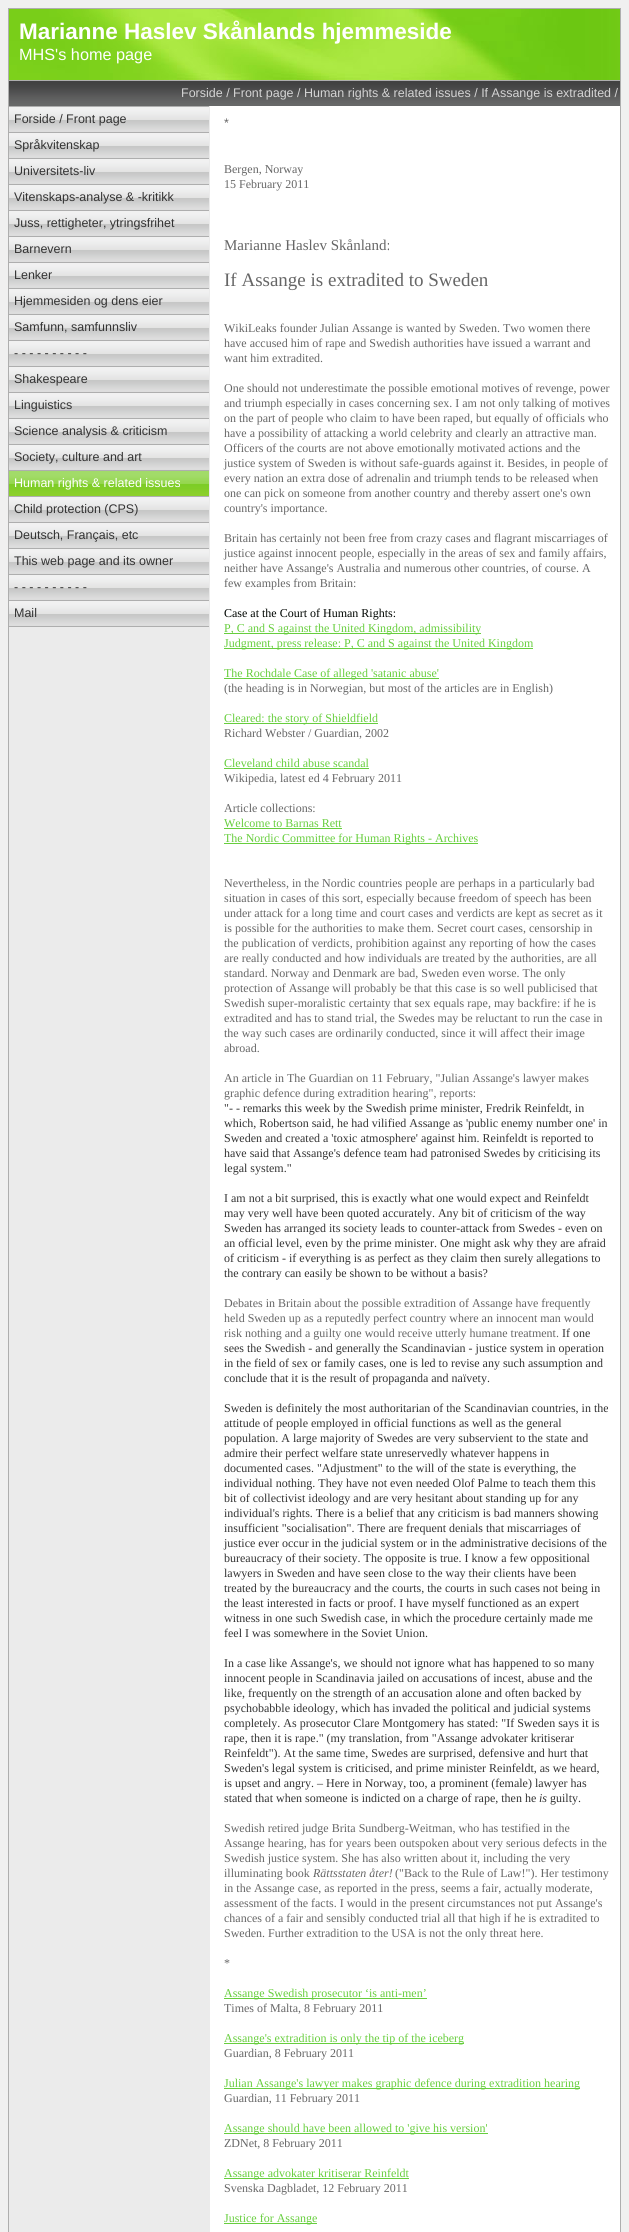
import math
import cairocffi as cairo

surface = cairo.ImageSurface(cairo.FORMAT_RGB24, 629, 2232)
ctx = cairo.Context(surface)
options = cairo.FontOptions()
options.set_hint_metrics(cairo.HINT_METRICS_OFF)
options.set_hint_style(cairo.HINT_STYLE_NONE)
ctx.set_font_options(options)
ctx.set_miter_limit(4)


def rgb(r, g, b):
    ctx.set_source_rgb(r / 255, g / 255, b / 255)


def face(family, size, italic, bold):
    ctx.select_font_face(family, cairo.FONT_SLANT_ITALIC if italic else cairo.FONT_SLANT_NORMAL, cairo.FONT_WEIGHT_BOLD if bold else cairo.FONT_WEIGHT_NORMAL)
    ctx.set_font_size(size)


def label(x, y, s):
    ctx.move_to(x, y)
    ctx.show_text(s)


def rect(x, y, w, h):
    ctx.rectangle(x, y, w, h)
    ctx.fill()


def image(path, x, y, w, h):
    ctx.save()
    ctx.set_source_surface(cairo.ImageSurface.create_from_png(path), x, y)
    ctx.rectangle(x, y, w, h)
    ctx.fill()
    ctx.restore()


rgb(240, 240, 240)
ctx.paint()
rgb(255, 255, 255)
rect(210, 106, 410, 2126)
rgb(235, 235, 235)
rect(9, 106, 201, 2126)
ctx.rectangle(8.5, 8.5, 612, 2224)
rgb(174, 174, 174)
ctx.set_line_width(1)
ctx.stroke()
image('image0.png', 9, 9, 611, 71)
rect(9, 80, 611, 1)
face('Liberation Sans', 22.5, 0, 1)
rgb(255, 255, 255)
label(19, 39, 'Marianne Haslev Skånlands hjemmeside')
face('Liberation Sans', 16.25, 0, 0)
label(19, 60, 'MHS\'s home page')
image('image1.png', 9, 81, 611, 25)
face('Liberation Sans', 12.5, 0, 0)
rgb(212, 212, 212)
label(181, 97, 'Forside / Front page / Human rights & related issues / If Assange is extradited /')
rgb(174, 174, 174)
rect(9, 106, 200, 1)
image('image2.png', 9, 107, 200, 25)
rect(9, 132, 200, 1)
rgb(51, 51, 51)
label(14, 123, 'Forside / Front page')
image('image2.png', 9, 133, 200, 25)
rgb(174, 174, 174)
rect(9, 158, 200, 1)
rgb(51, 51, 51)
label(14, 149, 'Språkvitenskap')
image('image2.png', 9, 159, 200, 25)
rgb(174, 174, 174)
rect(9, 184, 200, 1)
rgb(51, 51, 51)
label(14, 175, 'Universitets-liv')
image('image2.png', 9, 185, 200, 25)
rgb(174, 174, 174)
rect(9, 210, 200, 1)
rgb(51, 51, 51)
label(14, 201, 'Vitenskaps-analyse & -kritikk')
image('image2.png', 9, 211, 200, 25)
rgb(174, 174, 174)
rect(9, 236, 200, 1)
rgb(51, 51, 51)
label(14, 227, 'Juss, rettigheter, ytringsfrihet')
image('image2.png', 9, 237, 200, 25)
rgb(174, 174, 174)
rect(9, 262, 200, 1)
rgb(51, 51, 51)
label(14, 253, 'Barnevern')
image('image2.png', 9, 263, 200, 25)
rgb(174, 174, 174)
rect(9, 288, 200, 1)
rgb(51, 51, 51)
label(14, 279, 'Lenker')
image('image2.png', 9, 289, 200, 25)
rgb(174, 174, 174)
rect(9, 314, 200, 1)
rgb(51, 51, 51)
label(14, 305, 'Hjemmesiden og dens eier')
image('image2.png', 9, 315, 200, 25)
rgb(174, 174, 174)
rect(9, 340, 200, 1)
rgb(51, 51, 51)
label(14, 331, 'Samfunn, samfunnsliv')
image('image2.png', 9, 341, 200, 25)
rgb(174, 174, 174)
rect(9, 366, 200, 1)
rgb(51, 51, 51)
label(14, 357, '- - - - - - - - - -')
image('image2.png', 9, 367, 200, 25)
rgb(174, 174, 174)
rect(9, 392, 200, 1)
rgb(51, 51, 51)
label(14, 383, 'Shakespeare')
image('image2.png', 9, 393, 200, 25)
rgb(174, 174, 174)
rect(9, 418, 200, 1)
rgb(51, 51, 51)
label(14, 409, 'Linguistics')
image('image2.png', 9, 419, 200, 25)
rgb(174, 174, 174)
rect(9, 444, 200, 1)
rgb(51, 51, 51)
label(14, 435, 'Science analysis & criticism')
image('image2.png', 9, 445, 200, 25)
rgb(174, 174, 174)
rect(9, 470, 200, 1)
rgb(51, 51, 51)
label(14, 461, 'Society, culture and art')
image('image3.png', 9, 471, 200, 25)
rgb(174, 174, 174)
rect(9, 496, 200, 1)
rgb(255, 255, 255)
label(14, 487, 'Human rights & related issues')
image('image2.png', 9, 497, 200, 25)
rgb(174, 174, 174)
rect(9, 522, 200, 1)
rgb(51, 51, 51)
label(14, 513, 'Child protection (CPS)')
image('image2.png', 9, 523, 200, 25)
rgb(174, 174, 174)
rect(9, 548, 200, 1)
rgb(51, 51, 51)
label(14, 539, 'Deutsch, Français, etc')
image('image2.png', 9, 549, 200, 25)
rgb(174, 174, 174)
rect(9, 574, 200, 1)
rgb(51, 51, 51)
label(14, 565, 'This web page and its owner')
image('image2.png', 9, 575, 200, 25)
rgb(174, 174, 174)
rect(9, 600, 200, 1)
rgb(51, 51, 51)
label(14, 591, '- - - - - - - - - -')
image('image2.png', 9, 601, 200, 25)
rgb(174, 174, 174)
rect(9, 626, 200, 1)
rgb(51, 51, 51)
label(14, 617, 'Mail')
rgb(102, 102, 102)
label(224, 127, '*')
face('Liberation Serif', 12, 0, 0)
label(224, 173, 'Bergen, Norway')
label(224, 188, '15 February 2011')
face('Liberation Serif', 15, 0, 0)
label(224, 250, 'Marianne Haslev Skånland:')
face('Liberation Serif', 19, 0, 0)
label(224, 286, 'If Assange is extradited to Sweden')
face('Liberation Serif', 12, 0, 0)
label(224, 332, 'WikiLeaks founder Julian Assange is wanted by Sweden. Two women there')
label(224, 347, 'have accused him of rape and Swedish authorities have issued a warrant and')
label(224, 362, 'want him extradited.')
label(224, 392, 'One should not underestimate the possible emotional motives of revenge, power')
label(224, 407, 'and triumph especially in cases concerning sex. I am not only talking of motives')
label(224, 422, 'on the part of people who claim to have been raped, but equally of officials who')
label(224, 437, 'have a possibility of attacking a world celebrity and clearly an attractive man.')
label(224, 452, 'Officers of the courts are not above emotionally motivated actions and the')
label(224, 467, 'justice system of Sweden is without safe-guards against it. Besides, in people of')
label(224, 482, 'every nation an extra dose of adrenalin and triumph tends to be released when')
label(224, 497, 'one can pick on someone from another country and thereby assert one\'s own')
label(224, 512, 'country\'s importance.')
label(224, 542, 'Britain has certainly not been free from crazy cases and flagrant miscarriages of')
label(224, 557, 'justice against innocent people, especially in the areas of sex and family affairs,')
label(224, 572, 'neither have Assange\'s Australia and numerous other countries, of course. A')
label(224, 587, 'few examples from Britain:')
rgb(0, 5, 1)
label(224, 617, 'Case at the Court of Human Rights:')
rgb(103, 206, 61)
rect(224, 633, 257, 1)
label(224, 632, 'P, C and S against the United Kingdom, admissibility')
rect(224, 648, 309, 1)
label(224, 647, 'Judgment, press release: P, C and S against the United Kingdom')
rect(224, 678, 215, 1)
label(224, 677, 'The Rochdale Case of alleged \'satanic abuse\'')
rgb(102, 102, 102)
label(224, 692, '(the heading is in Norwegian, but most of the articles are in English)')
rgb(103, 206, 61)
rect(224, 723, 154, 1)
label(224, 722, 'Cleared: the story of Shieldfield')
rgb(102, 102, 102)
label(224, 737, 'Richard Webster / Guardian, 2002')
rgb(103, 206, 61)
label(224, 767, 'Cleveland child abuse scandal')
rect(224, 768, 145, 1)
rgb(102, 102, 102)
label(224, 782, 'Wikipedia, latest ed 4 February 2011')
label(224, 812, 'Article collections:')
rgb(103, 206, 61)
label(224, 827, 'Welcome to Barnas Rett')
rect(224, 828, 118, 1)
rect(224, 843, 254, 1)
label(224, 842, 'The Nordic Committee for Human Rights - Archives')
rgb(102, 102, 102)
label(224, 887, 'Nevertheless, in the Nordic countries people are perhaps in a particularly bad')
label(224, 902, 'situation in cases of this sort, especially because freedom of speech has been')
label(224, 917, 'under attack for a long time and court cases and verdicts are kept as secret as it')
label(224, 932, 'is possible for the authorities to make them. Secret court cases, censorship in')
label(224, 947, 'the publication of verdicts, prohibition against any reporting of how the cases')
label(224, 962, 'are really conducted and how individuals are treated by the authorities, are all')
label(224, 977, 'standard. Norway and Denmark are bad, Sweden even worse. The only')
label(224, 992, 'protection of Assange will probably be that this case is so well publicised that')
label(224, 1007, 'Swedish super-moralistic certainty that sex equals rape, may backfire: if he is')
label(224, 1022, 'extradited and has to stand trial, the Swedes may be reluctant to run the case in')
label(224, 1037, 'the way such cases are ordinarily conducted, since it will affect their image')
label(224, 1052, 'abroad.')
label(224, 1082, 'An article in The Guardian on 11 February, "Julian Assange\'s lawyer makes')
label(224, 1097, 'graphic defence during extradition hearing", reports:')
rgb(51, 51, 51)
label(224, 1112, '"- - remarks this week by the Swedish prime minister, Fredrik Reinfeldt, in')
label(224, 1127, 'which, Robertson said, he had vilified Assange as \'public enemy number one\' in')
label(224, 1142, 'Sweden and created a \'toxic atmosphere\' against him. Reinfeldt is reported to')
label(224, 1157, 'have said that Assange\'s defence team had patronised Swedes by criticising its')
label(224, 1172, 'legal system."')
label(224, 1202, 'I am not a bit surprised, this is exactly what one would expect and Reinfeldt')
label(224, 1217, 'may very well have been quoted accurately. Any bit of criticism of the way')
label(224, 1232, 'Sweden has arranged its society leads to counter-attack from Swedes - even on')
label(224, 1247, 'an official level, even by the prime minister. One might ask why they are afraid')
label(224, 1262, 'of criticism - if everything is as perfect as they claim then surely allegations to')
label(224, 1277, 'the contrary can easily be shown to be without a basis?')
rgb(102, 102, 102)
label(224, 1307, 'Debates in Britain about the possible extradition of Assange have frequently')
label(224, 1322, 'held Sweden up as a reputedly perfect country where an innocent man would')
label(224, 1337, 'risk nothing and a guilty one would receive utterly humane treatment.')
rgb(51, 51, 51)
label(562, 1337, 'If one')
label(224, 1352, 'sees the Swedish - and generally the Scandinavian - justice system in operation')
label(224, 1367, 'in the field of sex or family cases, one is led to revise any such assumption and')
label(224, 1382, 'conclude that it is the result of propaganda and naïvety.')
label(224, 1412, 'Sweden is definitely the most authoritarian of the Scandinavian countries, in the')
label(224, 1427, 'attitude of people employed in official functions as well as the general')
label(224, 1442, 'population. A large majority of Swedes are very subservient to the state and')
label(224, 1457, 'admire their perfect welfare state unreservedly whatever happens in')
label(224, 1472, 'documented cases. "Adjustment" to the will of the state is everything, the')
label(224, 1487, 'individual nothing. They have not even needed Olof Palme to teach them this')
label(224, 1502, 'bit of collectivist ideology and are very hesitant about standing up for any')
label(224, 1517, 'individual\'s rights. There is a belief that any criticism is bad manners showing')
label(224, 1532, 'insufficient "socialisation". There are frequent denials that miscarriages of')
label(224, 1547, 'justice ever occur in the judicial system or in the administrative decisions of the')
label(224, 1562, 'bureaucracy of their society. The opposite is true. I know a few oppositional')
label(224, 1577, 'lawyers in Sweden and have seen close to the way their clients have been')
label(224, 1592, 'treated by the bureaucracy and the courts, the courts in such cases not being in')
label(224, 1607, 'the least interested in facts or proof. I have myself functioned as an expert')
label(224, 1622, 'witness in one such Swedish case, in which the procedure certainly made me')
label(224, 1637, 'feel I was somewhere in the Soviet Union.')
label(224, 1667, 'In a case like Assange\'s, we should not ignore what has happened to so many')
label(224, 1682, 'innocent people in Scandinavia jailed on accusations of incest, abuse and the')
label(224, 1697, 'like, frequently on the strength of an accusation alone and often backed by')
label(224, 1712, 'psychobabble ideology, which has invaded the political and judicial systems')
label(224, 1727, 'completely. As prosecutor Clare Montgomery has stated: "If Sweden says it is')
label(224, 1742, 'rape, then it is rape." (my translation, from "Assange advokater kritiserar')
label(224, 1757, 'Reinfeldt"). At the same time, Swedes are surprised, defensive and hurt that')
label(224, 1772, 'Sweden\'s legal system is criticised, and prime minister Reinfeldt, as we heard,')
label(224, 1787, 'is upset and angry. – Here in Norway, too, a prominent (female) lawyer has')
label(224, 1802, 'stated that when someone is indicted on a charge of rape, then he')
face('Liberation Serif', 12, 1, 0)
label(539, 1802, 'is')
face('Liberation Serif', 12, 0, 0)
label(550, 1802, 'guilty.')
rgb(102, 102, 102)
label(224, 1832, 'Swedish retired judge Brita Sundberg-Weitman, who has testified in the')
label(224, 1847, 'Assange hearing, has for years been outspoken about very serious defects in the')
label(224, 1862, 'Swedish justice system. She has also written about it, including the very')
label(224, 1877, 'illuminating book')
face('Liberation Serif', 12, 1, 0)
label(313, 1877, 'Rättsstaten åter!')
face('Liberation Serif', 12, 0, 0)
label(395, 1877, '("Back to the Rule of Law!"). Her testimony')
label(224, 1892, 'in the Assange case, as reported in the press, seems a fair, actually moderate,')
label(224, 1907, 'assessment of the facts. I would in the present circumstances not put Assange\'s')
label(224, 1922, 'chances of a fair and sensibly conducted trial all that high if he is extradited to')
label(224, 1937, 'Sweden. Further extradition to the USA is not the only threat here.')
label(224, 1967, '*')
rgb(103, 206, 61)
rect(224, 1998, 203, 1)
label(224, 1997, 'Assange Swedish prosecutor ‘is anti-men’')
rgb(102, 102, 102)
label(224, 2012, 'Times of Malta, 8 February 2011')
rgb(103, 206, 61)
rect(224, 2043, 240, 1)
label(224, 2042, 'Assange\'s extradition is only the tip of the iceberg')
rgb(102, 102, 102)
label(224, 2057, 'Guardian, 8 February 2011')
rgb(103, 206, 61)
rect(224, 2088, 356, 1)
label(224, 2087, 'Julian Assange\'s lawyer makes graphic defence during extradition hearing')
rgb(102, 102, 102)
label(224, 2102, 'Guardian, 11 February 2011')
rgb(103, 206, 61)
rect(224, 2133, 264, 1)
label(224, 2132, 'Assange should have been allowed to \'give his version\'')
rgb(102, 102, 102)
label(224, 2147, 'ZDNet, 8 February 2011')
rgb(103, 206, 61)
rect(224, 2178, 185, 1)
label(224, 2177, 'Assange advokater kritiserar Reinfeldt')
rgb(102, 102, 102)
label(224, 2192, 'Svenska Dagbladet, 12 February 2011')
rgb(103, 206, 61)
rect(224, 2223, 93, 1)
label(224, 2222, 'Justice for Assange')
surface.write_to_png('render.png')
